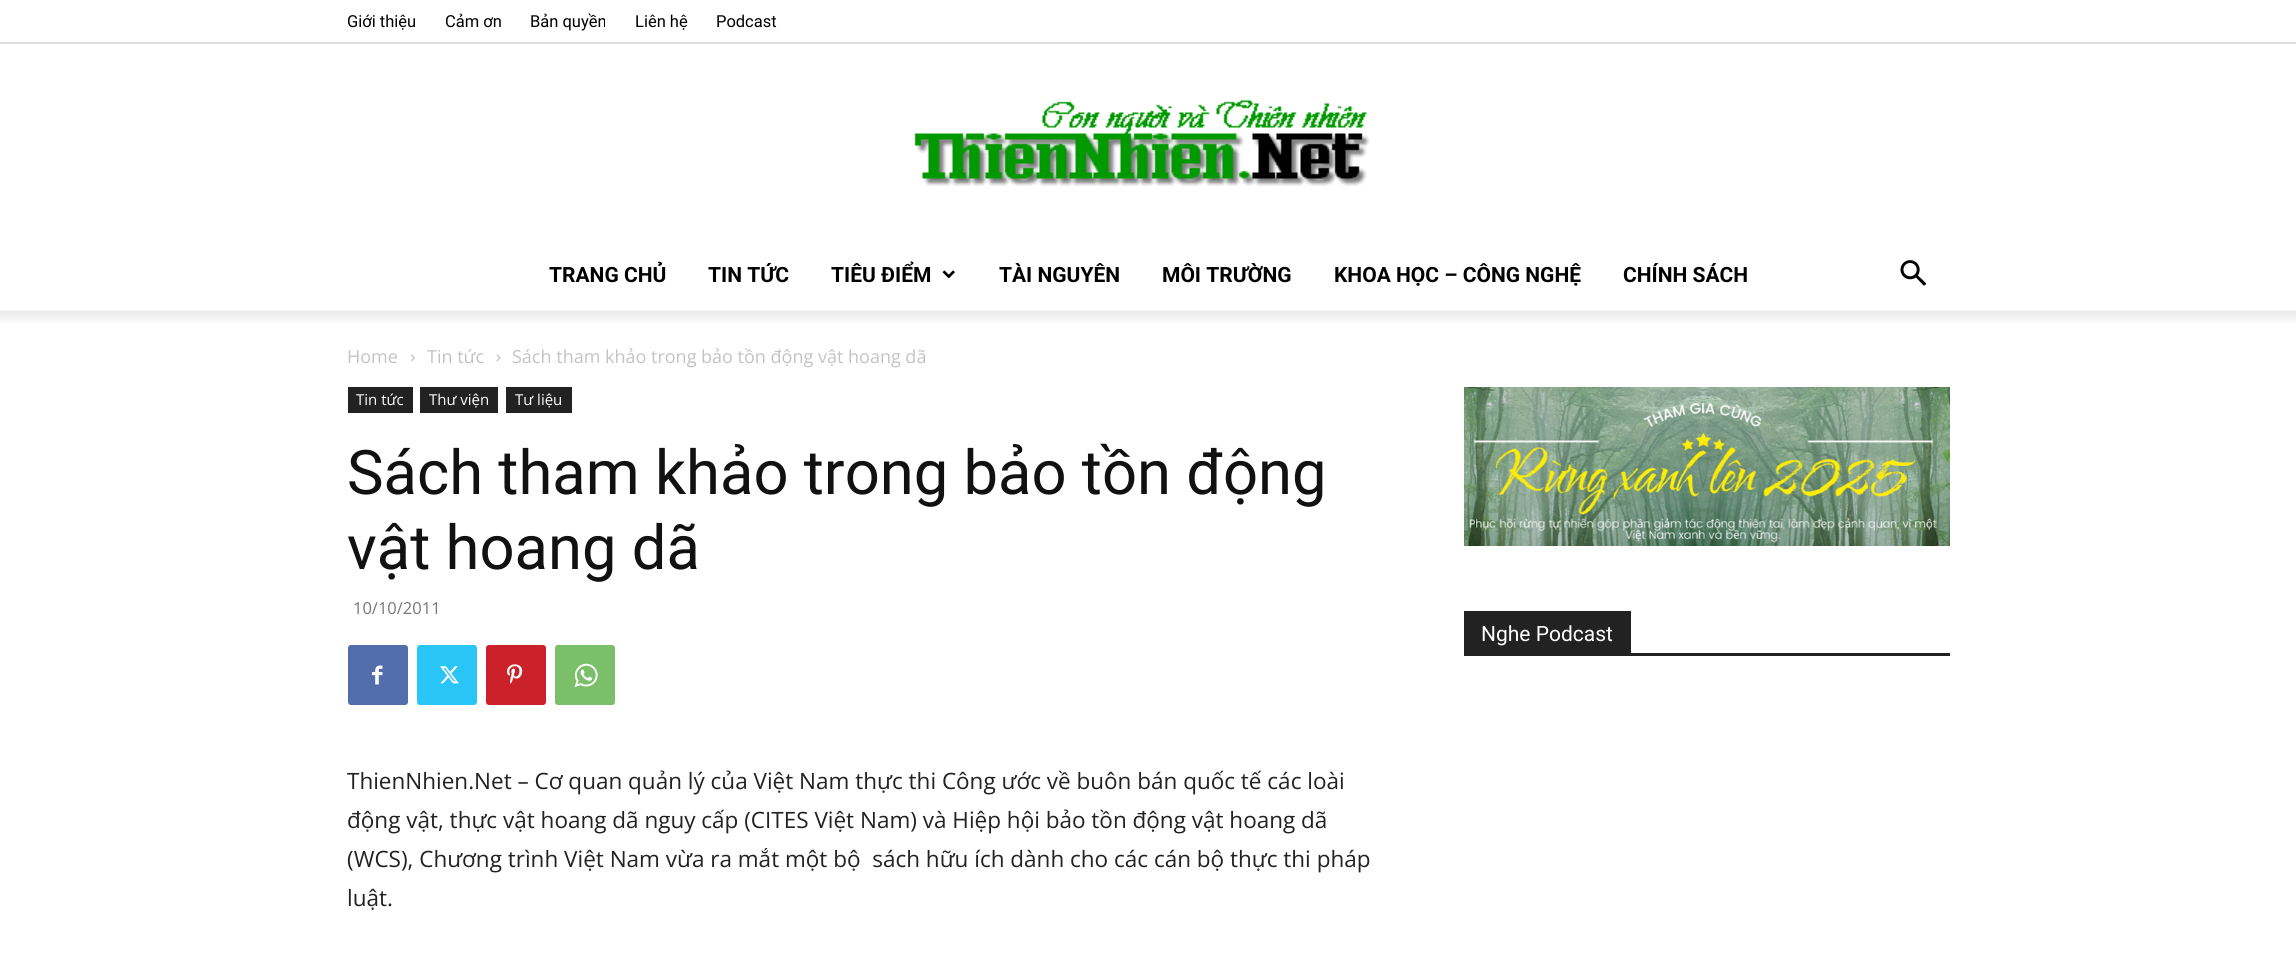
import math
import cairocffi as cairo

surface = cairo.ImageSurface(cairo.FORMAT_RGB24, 2296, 962)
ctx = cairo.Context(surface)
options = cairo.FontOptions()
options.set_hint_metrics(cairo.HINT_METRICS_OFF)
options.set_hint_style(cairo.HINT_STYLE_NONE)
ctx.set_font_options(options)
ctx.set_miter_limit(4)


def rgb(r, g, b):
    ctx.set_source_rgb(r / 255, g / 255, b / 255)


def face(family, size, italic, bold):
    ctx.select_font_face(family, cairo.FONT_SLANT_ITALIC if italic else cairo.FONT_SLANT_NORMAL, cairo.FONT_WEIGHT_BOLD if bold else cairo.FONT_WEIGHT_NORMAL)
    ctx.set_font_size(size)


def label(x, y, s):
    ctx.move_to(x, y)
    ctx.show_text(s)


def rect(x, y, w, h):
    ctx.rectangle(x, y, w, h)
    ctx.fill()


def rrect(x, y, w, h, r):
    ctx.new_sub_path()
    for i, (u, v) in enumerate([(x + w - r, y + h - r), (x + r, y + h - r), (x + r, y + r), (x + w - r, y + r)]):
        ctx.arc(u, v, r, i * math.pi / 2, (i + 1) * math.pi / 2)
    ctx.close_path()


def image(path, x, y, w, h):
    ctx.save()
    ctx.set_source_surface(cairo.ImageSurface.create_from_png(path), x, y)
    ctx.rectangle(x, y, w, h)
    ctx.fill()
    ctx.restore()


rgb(255, 255, 255)
ctx.paint()
rgb(224, 224, 224)
rect(0, 42, 2296, 2)
face('Roboto', 16.5, 0, 0)
rgb(0, 0, 0)
label(347, 27, 'Giới thiệu')
label(445, 27, 'Cảm ơn')
label(530, 27, 'Bản quyền')
label(635, 27, 'Liên hệ')
label(716, 27, 'Podcast')
image('image0.png', 914, 100, 456, 86)
face('Roboto', 21, 0, 1)
label(549, 282, 'TRANG CHỦ')
label(708, 282, 'TIN TỨC')
label(831, 282, 'TIÊU ĐIỂM')
image('image1.png', 942, 270, 13, 9)
label(999, 282, 'TÀI NGUYÊN')
label(1162, 282, 'MÔI TRƯỜNG')
label(1334, 282, 'KHOA HỌC – CÔNG NGHỆ')
label(1623, 282, 'CHÍNH SÁCH')
image('image2.png', 1900, 260, 26, 26)
image('image3.png', 0, 310, 2296, 13)
face('Open Sans', 18, 0, 0)
rgb(195, 195, 195)
label(347, 363, 'Home')
image('image4.png', 411, 354, 4, 8)
label(427, 363, 'Tin tức')
image('image5.png', 496, 354, 5, 8)
label(512, 363, 'Sách tham khảo trong bảo tồn động vật hoang dã')
rgb(34, 34, 34)
rect(348, 387, 65, 26)
face('Open Sans', 15, 0, 0)
rgb(255, 255, 255)
label(356, 405, 'Tin tức')
rgb(34, 34, 34)
rect(420, 387, 78, 26)
rgb(255, 255, 255)
label(429, 405, 'Thư viện')
rgb(34, 34, 34)
rect(506, 387, 66, 26)
rgb(255, 255, 255)
label(515, 405, 'Tư liệu')
face('Roboto', 61.5, 0, 0)
rgb(17, 17, 17)
label(347, 494, 'Sách tham khảo trong bảo tồn động')
label(347, 569, 'vật hoang dã')
face('Open Sans', 16.5, 0, 0)
rgb(118, 118, 118)
label(353, 614, '10/10/2011')
rgb(81, 110, 171)
rrect(348, 645, 60, 60, 3)
ctx.fill()
image('image6.png', 372, 665, 11, 20)
rgb(41, 197, 246)
rrect(417, 645, 60, 60, 3)
ctx.fill()
image('image7.png', 440, 666, 19, 18)
rgb(202, 33, 42)
rrect(486, 645, 60, 60, 3)
ctx.fill()
image('image8.png', 507, 664, 16, 20)
rgb(123, 191, 106)
rrect(555, 645, 60, 60, 3)
ctx.fill()
image('image9.png', 574, 663, 24, 24)
face('Open Sans', 22.5, 0, 0)
rgb(34, 34, 34)
label(347, 789, 'ThienNhien.Net – Cơ quan quản lý của Việt Nam thực thi Công ước về buôn bán quốc tế các loài')
label(347, 828, 'động vật, thực vật hoang dã nguy cấp (CITES Việt Nam) và Hiệp hội bảo tồn động vật hoang dã')
label(347, 867, '(WCS), Chương trình Việt Nam vừa ra mắt một bộ  sách hữu ích dành cho các cán bộ thực thi pháp')
label(347, 906, 'luật.')
image('image10.png', 1464, 387, 486, 159)
rect(1464, 653, 486, 3)
rect(1464, 611, 167, 42)
face('Roboto', 21, 0, 0)
rgb(255, 255, 255)
label(1481, 641, 'Nghe Podcast')
surface.write_to_png('render.png')
